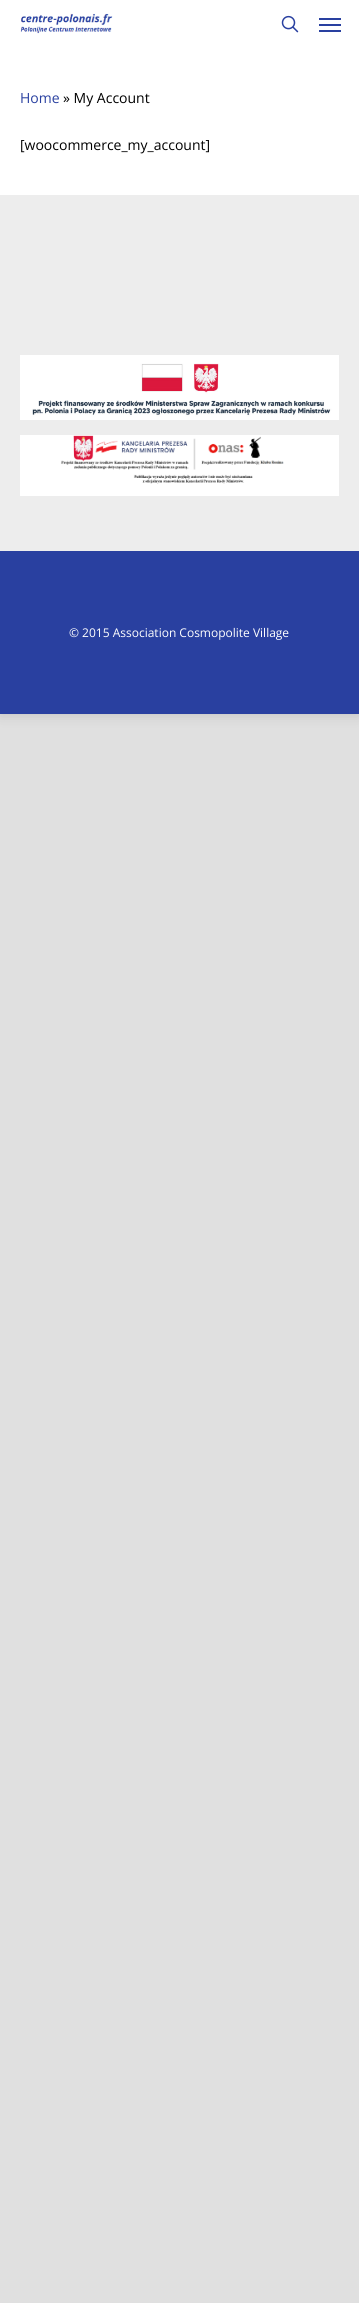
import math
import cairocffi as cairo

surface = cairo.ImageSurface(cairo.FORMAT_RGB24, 359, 2303)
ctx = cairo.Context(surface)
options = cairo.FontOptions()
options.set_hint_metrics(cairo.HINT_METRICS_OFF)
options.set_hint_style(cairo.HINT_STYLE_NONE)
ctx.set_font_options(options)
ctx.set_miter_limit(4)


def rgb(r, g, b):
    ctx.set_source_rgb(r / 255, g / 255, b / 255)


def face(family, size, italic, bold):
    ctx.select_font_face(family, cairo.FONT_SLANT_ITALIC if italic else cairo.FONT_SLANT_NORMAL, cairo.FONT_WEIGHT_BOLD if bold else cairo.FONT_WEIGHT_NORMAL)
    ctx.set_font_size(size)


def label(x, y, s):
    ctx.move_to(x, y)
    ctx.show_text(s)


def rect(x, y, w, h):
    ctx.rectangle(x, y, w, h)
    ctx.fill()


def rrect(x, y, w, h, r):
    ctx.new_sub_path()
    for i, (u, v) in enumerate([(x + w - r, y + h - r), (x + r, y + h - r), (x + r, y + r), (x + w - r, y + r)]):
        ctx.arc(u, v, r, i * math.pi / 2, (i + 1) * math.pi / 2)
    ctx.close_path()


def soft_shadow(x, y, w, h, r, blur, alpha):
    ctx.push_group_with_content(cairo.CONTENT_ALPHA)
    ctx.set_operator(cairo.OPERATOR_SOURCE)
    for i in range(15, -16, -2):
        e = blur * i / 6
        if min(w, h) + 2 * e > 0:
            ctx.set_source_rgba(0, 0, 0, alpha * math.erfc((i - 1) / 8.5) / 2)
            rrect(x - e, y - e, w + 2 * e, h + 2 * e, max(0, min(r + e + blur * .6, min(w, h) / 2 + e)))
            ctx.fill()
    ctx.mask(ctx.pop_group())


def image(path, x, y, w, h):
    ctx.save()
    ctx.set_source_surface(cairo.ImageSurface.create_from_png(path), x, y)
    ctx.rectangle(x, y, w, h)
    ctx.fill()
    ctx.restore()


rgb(224, 224, 224)
ctx.paint()
rgb(0, 0, 0)
soft_shadow(0, 0, 359, 714, 0, 7.5, 0.15)
rgb(255, 255, 255)
rect(0, 0, 359, 195)
image('image0.png', 20, 13, 93, 21)
image('image1.png', 281, 15, 18, 18)
rgb(41, 64, 160)
rect(319, 18, 22, 2)
rect(319, 30, 22, 2)
rect(319, 24, 22, 2)
face('Open Sans', 14, 0, 0)
label(20, 103, 'Home')
rgb(0, 0, 0)
label(63, 103, '» My Account')
label(20, 150, '[woocommerce_my_account]')
rgb(237, 237, 237)
rect(0, 195, 359, 356)
image('image2.png', 20, 355, 319, 65)
image('image3.png', 20, 435, 319, 61)
rgb(41, 64, 160)
rect(0, 551, 359, 163)
face('Open Sans', 12, 0, 0)
rgb(255, 255, 255)
label(69, 637, '© 2015 Association Cosmopolite Village')
surface.write_to_png('render.png')
